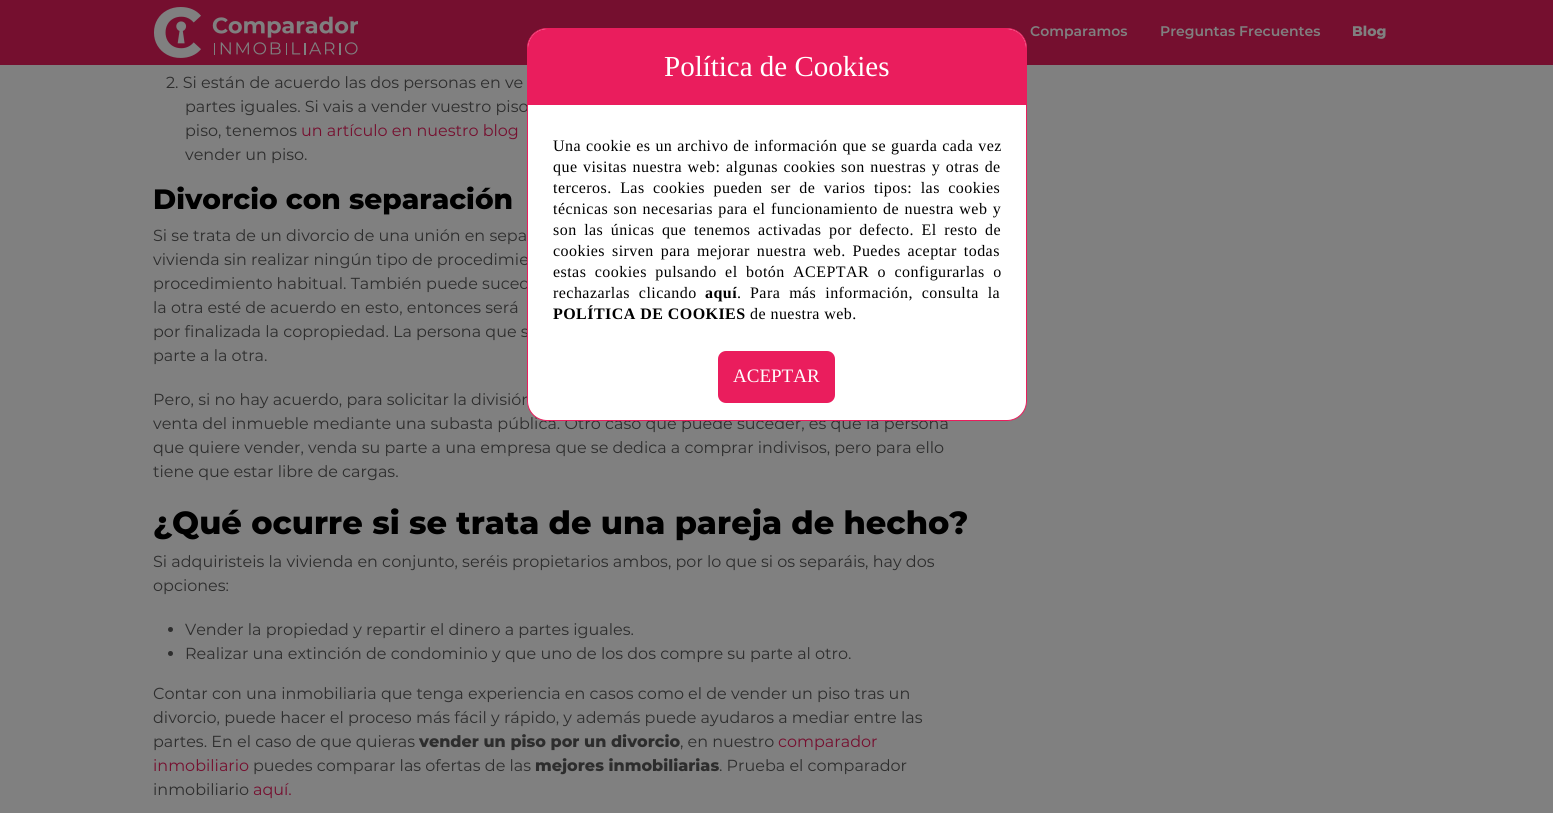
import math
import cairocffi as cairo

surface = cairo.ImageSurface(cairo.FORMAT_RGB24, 1553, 813)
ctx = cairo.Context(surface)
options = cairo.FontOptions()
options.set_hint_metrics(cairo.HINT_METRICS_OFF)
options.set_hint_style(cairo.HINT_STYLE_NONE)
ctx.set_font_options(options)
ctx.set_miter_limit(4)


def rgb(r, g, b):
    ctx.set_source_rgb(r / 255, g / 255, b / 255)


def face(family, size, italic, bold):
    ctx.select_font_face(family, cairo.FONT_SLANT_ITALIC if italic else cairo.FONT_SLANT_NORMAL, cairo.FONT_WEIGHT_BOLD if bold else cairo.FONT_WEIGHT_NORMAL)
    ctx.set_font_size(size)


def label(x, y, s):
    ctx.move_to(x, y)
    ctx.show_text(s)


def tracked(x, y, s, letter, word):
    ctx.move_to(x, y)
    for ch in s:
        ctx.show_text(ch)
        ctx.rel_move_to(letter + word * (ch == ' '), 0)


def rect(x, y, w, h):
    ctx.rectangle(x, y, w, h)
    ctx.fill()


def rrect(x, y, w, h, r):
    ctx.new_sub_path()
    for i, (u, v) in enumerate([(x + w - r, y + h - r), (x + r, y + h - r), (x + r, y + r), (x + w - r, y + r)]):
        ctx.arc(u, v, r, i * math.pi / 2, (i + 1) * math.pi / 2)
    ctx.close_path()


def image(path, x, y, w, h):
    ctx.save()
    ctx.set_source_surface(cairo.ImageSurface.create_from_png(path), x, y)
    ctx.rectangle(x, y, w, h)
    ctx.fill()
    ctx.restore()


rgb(128, 128, 128)
ctx.paint()
rgb(117, 15, 47)
rect(0, 0, 1553, 65)
image('image0.png', 154, 7, 204, 51)
face('Montserrat SemiBold', 14, 0, 0)
rgb(128, 128, 128)
label(1030, 36, 'Comparamos')
label(1160, 36, 'Preguntas Frecuentes')
face('Montserrat ExtraBold', 14, 0, 0)
label(1352, 36, 'Blog')
face('Montserrat', 16, 0, 0)
rgb(45, 45, 45)
label(166, 88, '2. Si están de acuerdo las dos personas en ve')
label(185, 112, 'partes iguales. Si vais a vender vuestro piso')
label(185, 136, 'piso, tenemos')
rgb(117, 15, 47)
label(301, 136, 'un artículo en nuestro blog')
rgb(45, 45, 45)
label(185, 160, 'vender un piso.')
face('Montserrat ExtraBold', 28, 0, 0)
rgb(0, 0, 0)
label(153, 209, 'Divorcio con separación')
face('Montserrat', 16, 0, 0)
rgb(45, 45, 45)
label(153, 241, 'Si se trata de un divorcio de una unión en sepa')
label(153, 265, 'vivienda sin realizar ningún tipo de procedimie')
label(153, 289, 'procedimiento habitual. También puede suced')
label(153, 313, 'la otra esté de acuerdo en esto, entonces será')
label(153, 337, 'por finalizada la copropiedad. La persona que s')
label(153, 361, 'parte a la otra.')
label(153, 405, 'Pero, si no hay acuerdo, para solicitar la división')
label(153, 429, 'venta del inmueble mediante una subasta pública. Otro caso que puede suceder, es que la persona')
label(153, 453, 'que quiere vender, venda su parte a una empresa que se dedica a comprar indivisos, pero para ello')
label(153, 477, 'tiene que estar libre de cargas.')
face('Montserrat ExtraBold', 32, 0, 0)
rgb(0, 0, 0)
label(153, 534, '¿Qué ocurre si se trata de una pareja de hecho?')
face('Montserrat', 16, 0, 0)
rgb(45, 45, 45)
label(153, 567, 'Si adquiristeis la vivienda en conjunto, seréis propietarios ambos, por lo que si os separáis, hay dos')
label(153, 591, 'opciones:')
ctx.new_path()
ctx.arc(170.5, 629.5, 2.5, 0, 2 * math.pi)
ctx.fill()
label(185, 635, 'Vender la propiedad y repartir el dinero a partes iguales.')
ctx.new_path()
ctx.arc(170.5, 653.5, 2.5, 0, 2 * math.pi)
ctx.fill()
label(185, 659, 'Realizar una extinción de condominio y que uno de los dos compre su parte al otro.')
label(153, 699, 'Contar con una inmobiliaria que tenga experiencia en casos como el de vender un piso tras un')
label(153, 723, 'divorcio, puede hacer el proceso más fácil y rápido, y además puede ayudaros a mediar entre las')
label(153, 747, 'partes. En el caso de que quieras')
face('Montserrat ExtraBold', 16, 0, 0)
label(419, 747, 'vender un piso por un divorcio')
face('Montserrat', 16, 0, 0)
label(680, 747, ', en nuestro')
rgb(117, 15, 47)
label(778, 747, 'comparador')
label(153, 771, 'inmobiliario')
rgb(45, 45, 45)
label(253, 771, 'puedes comparar las ofertas de las')
face('Montserrat ExtraBold', 16, 0, 0)
label(535, 771, 'mejores inmobiliarias')
face('Montserrat', 16, 0, 0)
label(719, 771, '. Prueba el comparador')
label(153, 795, 'inmobiliario')
rgb(117, 15, 47)
label(253, 795, 'aquí.')
rgb(255, 255, 255)
rrect(527.5, 28.5, 499, 392, 19.5)
ctx.fill_preserve()
rgb(234, 29, 93)
ctx.set_line_width(1)
ctx.stroke()
ctx.new_path()
ctx.move_to(547, 29)
ctx.line_to(1007, 29)
ctx.curve_to(1017.5, 29, 1026, 37.5, 1026, 48)
ctx.line_to(1026, 105)
ctx.line_to(528, 105)
ctx.line_to(528, 48)
ctx.curve_to(528, 37.5, 536.5, 29, 547, 29)
ctx.close_path()
ctx.fill()
face('Liberation Serif', 29, 0, 0)
rgb(255, 255, 255)
label(664, 76, 'Política de Cookies')
face('Liberation Serif', 16, 0, 0)
rgb(0, 0, 0)
tracked(553, 151, 'Una cookie es un archivo de información que se guarda cada vez', 0.45, 0.5)
tracked(553, 172, 'que visitas nuestra web: algunas cookies son nuestras y otras de', 0.45, 1.1)
tracked(553, 193, 'terceros. Las cookies pueden ser de varios tipos: las cookies', 0.45, 4)
tracked(553, 214, 'técnicas son necesarias para el funcionamiento de nuestra web y', 0.45, 1)
tracked(553, 235, 'son las únicas que tenemos activadas por defecto. El resto de', 0.45, 3.1)
tracked(553, 256, 'cookies sirven para mejorar nuestra web. Puedes aceptar todas', 0.45, 2.5)
tracked(553, 277, 'estas cookies pulsando el botón ACEPTAR o configurarlas o', 0.45, 4)
tracked(553, 298, 'rechazarlas clicando', 0.45, 4.5)
face('Liberation Serif', 16, 0, 1)
tracked(705, 298, 'aquí', 0.45, 0)
face('Liberation Serif', 16, 0, 0)
tracked(737, 298, '.', 0.45, 0)
tracked(750, 298, 'Para más información, consulta la', 0.45, 4.5)
face('Liberation Serif', 16, 0, 1)
tracked(553, 319, 'POLÍTICA DE COOKIES', 0.45, 0)
face('Liberation Serif', 16, 0, 0)
tracked(750, 319, 'de nuestra web.', 0.45, 0)
rgb(234, 29, 93)
rrect(717, 350, 119, 54, 9)
ctx.fill_preserve()
rgb(255, 255, 255)
ctx.set_line_width(2)
ctx.stroke()
face('Liberation Serif', 19, 0, 0)
label(733, 382, 'ACEPTAR')
surface.write_to_png('render.png')
